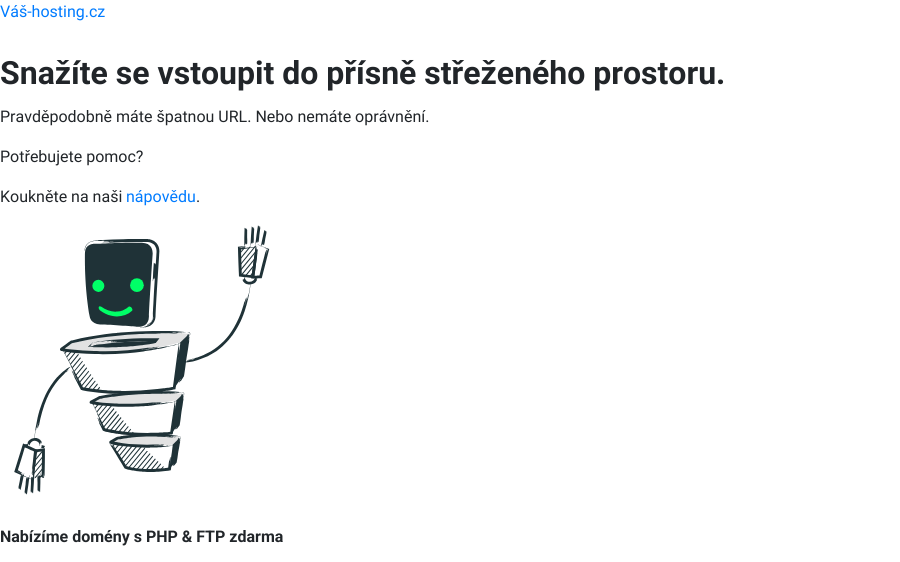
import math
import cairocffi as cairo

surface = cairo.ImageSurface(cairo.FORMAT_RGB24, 900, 562)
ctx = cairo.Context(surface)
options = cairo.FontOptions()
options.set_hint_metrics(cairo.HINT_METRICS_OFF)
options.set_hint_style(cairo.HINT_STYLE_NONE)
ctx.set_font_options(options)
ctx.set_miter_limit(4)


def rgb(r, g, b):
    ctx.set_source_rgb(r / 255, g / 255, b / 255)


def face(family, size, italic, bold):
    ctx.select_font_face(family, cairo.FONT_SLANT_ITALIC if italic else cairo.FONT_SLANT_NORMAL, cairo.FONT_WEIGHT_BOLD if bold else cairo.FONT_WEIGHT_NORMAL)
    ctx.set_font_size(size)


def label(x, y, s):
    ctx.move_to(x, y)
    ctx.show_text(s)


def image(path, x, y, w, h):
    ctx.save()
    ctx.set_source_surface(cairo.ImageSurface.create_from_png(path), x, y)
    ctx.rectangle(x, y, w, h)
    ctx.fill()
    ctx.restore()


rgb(255, 255, 255)
ctx.paint()
face('Roboto', 16, 0, 0)
rgb(0, 123, 255)
label(0, 17, 'Váš-hosting.cz')
face('Roboto', 32, 0, 1)
rgb(33, 37, 41)
label(0, 84, 'Snažíte se vstoupit do přísně střeženého prostoru.')
face('Roboto', 16, 0, 0)
label(0, 122, 'Pravděpodobně máte špatnou URL. Nebo nemáte oprávnění.')
label(0, 162, 'Potřebujete pomoc?')
label(0, 202, 'Koukněte na naši')
rgb(0, 123, 255)
label(126, 202, 'nápovědu')
rgb(33, 37, 41)
label(196, 202, '.')
image('image0.png', 14, 225, 256, 270)
face('Roboto', 16, 0, 1)
label(0, 542, 'Nabízíme domény s PHP & FTP zdarma')
surface.write_to_png('render.png')
